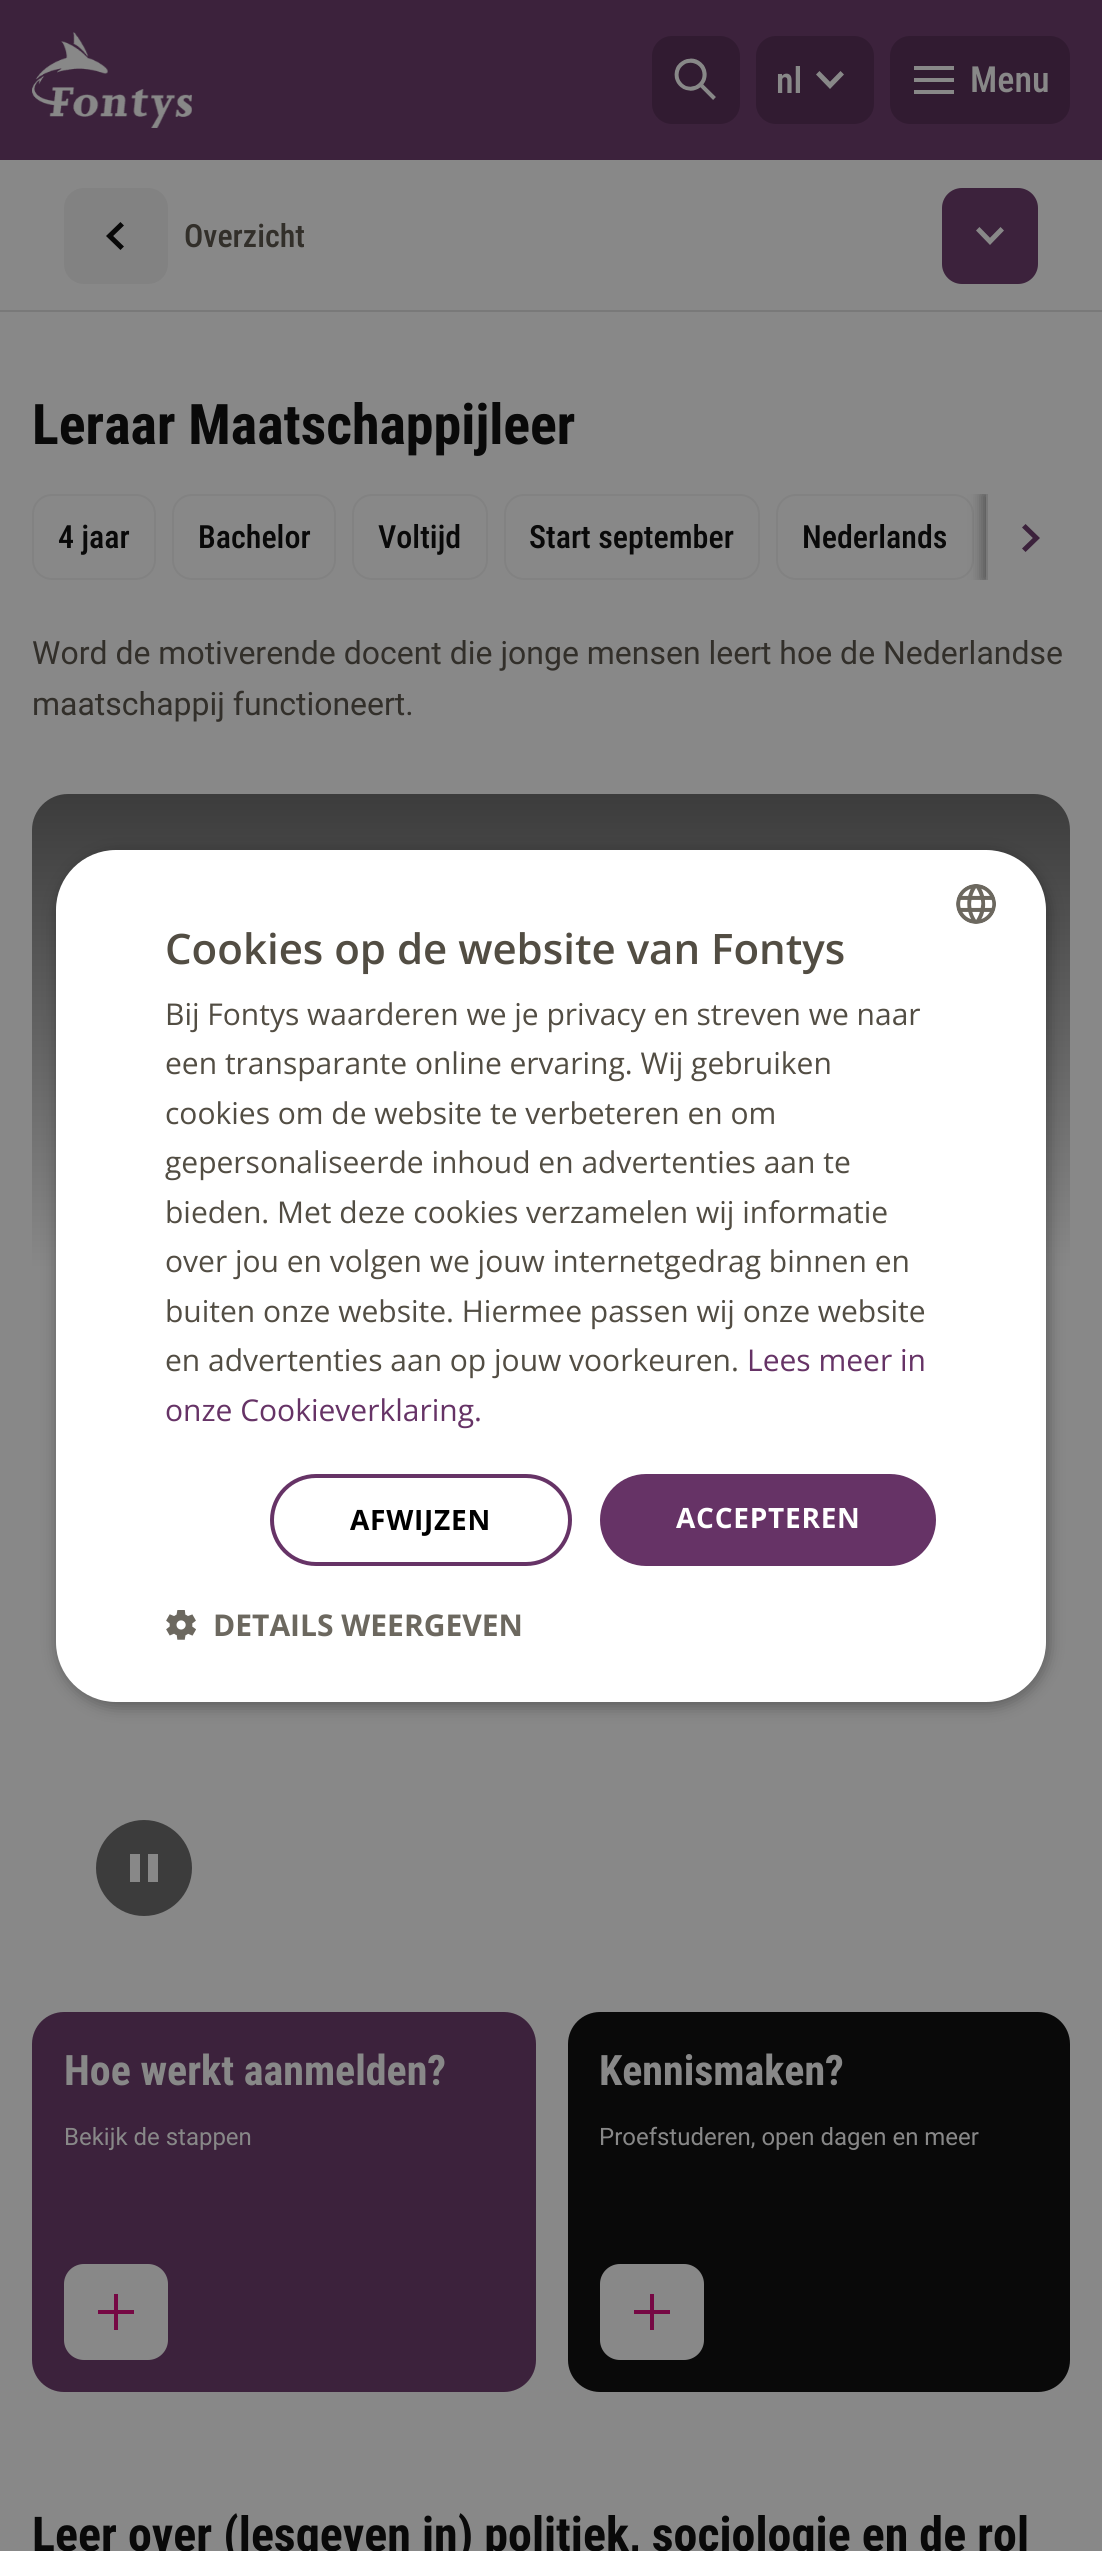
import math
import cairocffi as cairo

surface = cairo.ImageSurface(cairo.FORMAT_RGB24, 1102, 2551)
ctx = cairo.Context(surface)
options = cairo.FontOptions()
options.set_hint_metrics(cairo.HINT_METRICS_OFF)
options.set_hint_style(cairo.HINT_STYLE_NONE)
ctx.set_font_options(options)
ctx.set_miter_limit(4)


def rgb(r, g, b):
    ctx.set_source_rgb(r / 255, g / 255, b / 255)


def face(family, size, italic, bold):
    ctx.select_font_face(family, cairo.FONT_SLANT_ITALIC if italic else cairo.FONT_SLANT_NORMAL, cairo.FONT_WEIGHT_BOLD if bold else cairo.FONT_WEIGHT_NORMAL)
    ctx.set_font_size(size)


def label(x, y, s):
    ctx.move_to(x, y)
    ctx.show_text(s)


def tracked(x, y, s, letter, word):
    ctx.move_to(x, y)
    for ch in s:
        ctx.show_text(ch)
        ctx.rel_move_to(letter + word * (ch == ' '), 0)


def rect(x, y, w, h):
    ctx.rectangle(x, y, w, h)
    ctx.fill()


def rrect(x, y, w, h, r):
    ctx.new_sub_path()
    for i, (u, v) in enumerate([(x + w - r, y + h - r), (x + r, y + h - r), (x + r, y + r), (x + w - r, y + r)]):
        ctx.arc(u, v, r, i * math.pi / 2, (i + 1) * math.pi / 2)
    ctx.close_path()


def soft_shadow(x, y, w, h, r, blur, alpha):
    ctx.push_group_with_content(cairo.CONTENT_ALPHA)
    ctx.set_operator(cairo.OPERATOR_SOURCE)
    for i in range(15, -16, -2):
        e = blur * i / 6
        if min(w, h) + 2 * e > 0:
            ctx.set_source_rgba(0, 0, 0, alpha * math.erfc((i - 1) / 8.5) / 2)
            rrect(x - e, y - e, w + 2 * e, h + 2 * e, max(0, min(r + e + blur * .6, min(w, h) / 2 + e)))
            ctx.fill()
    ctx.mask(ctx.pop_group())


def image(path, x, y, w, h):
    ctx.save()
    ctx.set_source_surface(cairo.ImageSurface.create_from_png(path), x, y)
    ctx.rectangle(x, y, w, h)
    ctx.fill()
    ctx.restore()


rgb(136, 136, 136)
ctx.paint()
rgb(60, 34, 60)
rect(0, 0, 1102, 160)
image('image0.png', 32, 32, 160, 96)
rgb(49, 27, 49)
rrect(652, 36, 88, 88, 20)
ctx.fill()
image('image1.png', 674, 58, 42, 42)
rrect(756, 36, 118, 88, 20)
ctx.fill()
face('Roboto Condensed Medium', 36, 0, 0)
rgb(136, 136, 136)
label(776, 93, 'nl')
image('image2.png', 816, 71, 28, 18)
rgb(49, 27, 49)
rrect(890, 36, 180, 88, 20)
ctx.fill()
image('image3.png', 914, 66, 40, 28)
rgb(136, 136, 136)
label(970, 92, 'Menu')
rgb(121, 121, 121)
rect(0, 310, 1102, 2)
rgb(130, 130, 130)
rrect(64, 188, 104, 96, 20)
ctx.fill()
image('image4.png', 106, 222, 18, 28)
face('Roboto Condensed Medium', 32, 0, 0)
rgb(50, 47, 42)
label(184, 247, 'Overzicht')
gradient = cairo.LinearGradient(906, 312, 978, 160)
gradient.add_color_stop_rgba(0, 0.463, 0.035, 0.267, 1)
gradient.add_color_stop_rgba(0, 0.235, 0.133, 0.235, 1)
ctx.set_source(gradient)
rrect(942, 188, 96, 96, 20)
ctx.fill()
image('image5.png', 976, 227, 28, 18)
face('Roboto Condensed', 56, 0, 1)
rgb(9, 9, 9)
label(32, 444, 'Leraar Maatschappijleer')
rrect(33, 495, 122, 84, 19)
rgb(130, 130, 130)
ctx.stroke()
face('Roboto Condensed Medium', 32, 0, 0)
rgb(9, 9, 9)
label(58, 548, '4 jaar')
rrect(173, 495, 162, 84, 19)
rgb(130, 130, 130)
ctx.stroke()
rgb(9, 9, 9)
label(198, 548, 'Bachelor')
rrect(353, 495, 134, 84, 19)
rgb(130, 130, 130)
ctx.stroke()
rgb(9, 9, 9)
label(378, 548, 'Voltijd')
rrect(505, 495, 254, 84, 19)
rgb(130, 130, 130)
ctx.stroke()
rgb(9, 9, 9)
label(529, 548, 'Start september')
rrect(777, 495, 196, 84, 19)
rgb(130, 130, 130)
ctx.stroke()
rgb(9, 9, 9)
label(802, 548, 'Nederlands')
ctx.save()
ctx.rectangle(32, 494, 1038, 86)
ctx.clip()
rgb(9, 9, 9)
soft_shadow(982, 494, 84, 86, 0, 6, 0.4)
ctx.restore()
rgb(136, 136, 136)
rect(988, 494, 82, 86)
rgb(121, 121, 121)
rect(986, 494, 2, 86)
image('image6.png', 1022, 524, 18, 28)
face('Roboto', 32, 0, 0)
rgb(50, 47, 42)
label(32, 664, 'Word de motiverende docent die jonge mensen leert hoe de Nederlandse')
label(32, 715, 'maatschappij functioneert.')
gradient = cairo.LinearGradient(551, 1980, 551, 794)
gradient.add_color_stop_rgba(0.6, 0.533, 0.533, 0.533, 1)
gradient.add_color_stop_rgba(1, 0.235, 0.235, 0.235, 1)
ctx.set_source(gradient)
rrect(32, 794, 1038, 1186, 36)
ctx.fill()
rgb(60, 60, 60)
ctx.arc(144, 1868, 48, 0, 2 * math.pi)
ctx.fill()
image('image7.png', 130, 1854, 28, 28)
rgb(60, 34, 60)
rrect(32, 2012, 504, 380, 32)
ctx.fill()
face('Roboto Condensed', 42, 0, 1)
rgb(136, 136, 136)
label(64, 2085, 'Hoe werkt aanmelden?')
face('Roboto', 24, 0, 0)
label(64, 2145, 'Bekijk de stappen')
rrect(66, 2266, 100, 92, 18)
ctx.fill_preserve()
ctx.set_line_width(4)
ctx.stroke()
image('image8.png', 98, 2294, 36, 36)
rgb(9, 9, 9)
rrect(568, 2012, 502, 380, 32)
ctx.fill()
face('Roboto Condensed', 42, 0, 1)
rgb(136, 136, 136)
label(599, 2085, 'Kennismaken?')
face('Roboto', 24, 0, 0)
label(599, 2145, 'Proefstuderen, open dagen en meer')
rrect(602, 2266, 100, 92, 18)
ctx.fill_preserve()
ctx.stroke()
image('image8.png', 634, 2294, 36, 36)
face('Roboto Condensed', 48, 0, 1)
rgb(9, 9, 9)
label(32, 2551, 'Leer over (lesgeven in) politiek, sociologie en de rol')
rgb(0, 0, 0)
soft_shadow(58, 854, 990, 852, 60, 8, 0.35)
rgb(255, 255, 255)
rrect(56, 850, 990, 852, 60)
ctx.fill()
image('image9.png', 956, 884, 40, 40)
face('Open Sans SemiBold', 42, 0, 0)
rgb(82, 77, 67)
label(165, 964, 'Cookies op de website van Fontys')
face('Open Sans', 30, 0, 0)
label(165, 1025, 'Bij Fontys waarderen we je privacy en streven we naar')
label(165, 1074, 'een transparante online ervaring. Wij gebruiken')
label(165, 1124, 'cookies om de website te verbeteren en om')
label(165, 1173, 'gepersonaliseerde inhoud en advertenties aan te')
label(165, 1223, 'bieden. Met deze cookies verzamelen wij informatie')
label(165, 1272, 'over jou en volgen we jouw internetgedrag binnen en')
label(165, 1322, 'buiten onze website. Hiermee passen wij onze website')
label(165, 1371, 'en advertenties aan op jouw voorkeuren.')
rgb(102, 51, 102)
label(747, 1371, 'Lees meer in')
label(165, 1421, 'onze Cookieverklaring.')
rrect(272, 1476, 298, 88, 44)
ctx.stroke()
face('Open Sans', 28, 0, 1)
rgb(0, 0, 0)
tracked(350, 1530, 'AFWIJZEN', 0.75, 0)
rgb(102, 51, 102)
rrect(600, 1474, 336, 92, 46)
ctx.fill()
rgb(255, 255, 255)
tracked(676, 1528, 'ACCEPTEREN', 0.75, 0)
image('image10.png', 166, 1610, 30, 30)
face('Open Sans', 30, 0, 1)
rgb(108, 104, 95)
label(213, 1636, 'DETAILS WEERGEVEN')
surface.write_to_png('render.png')
